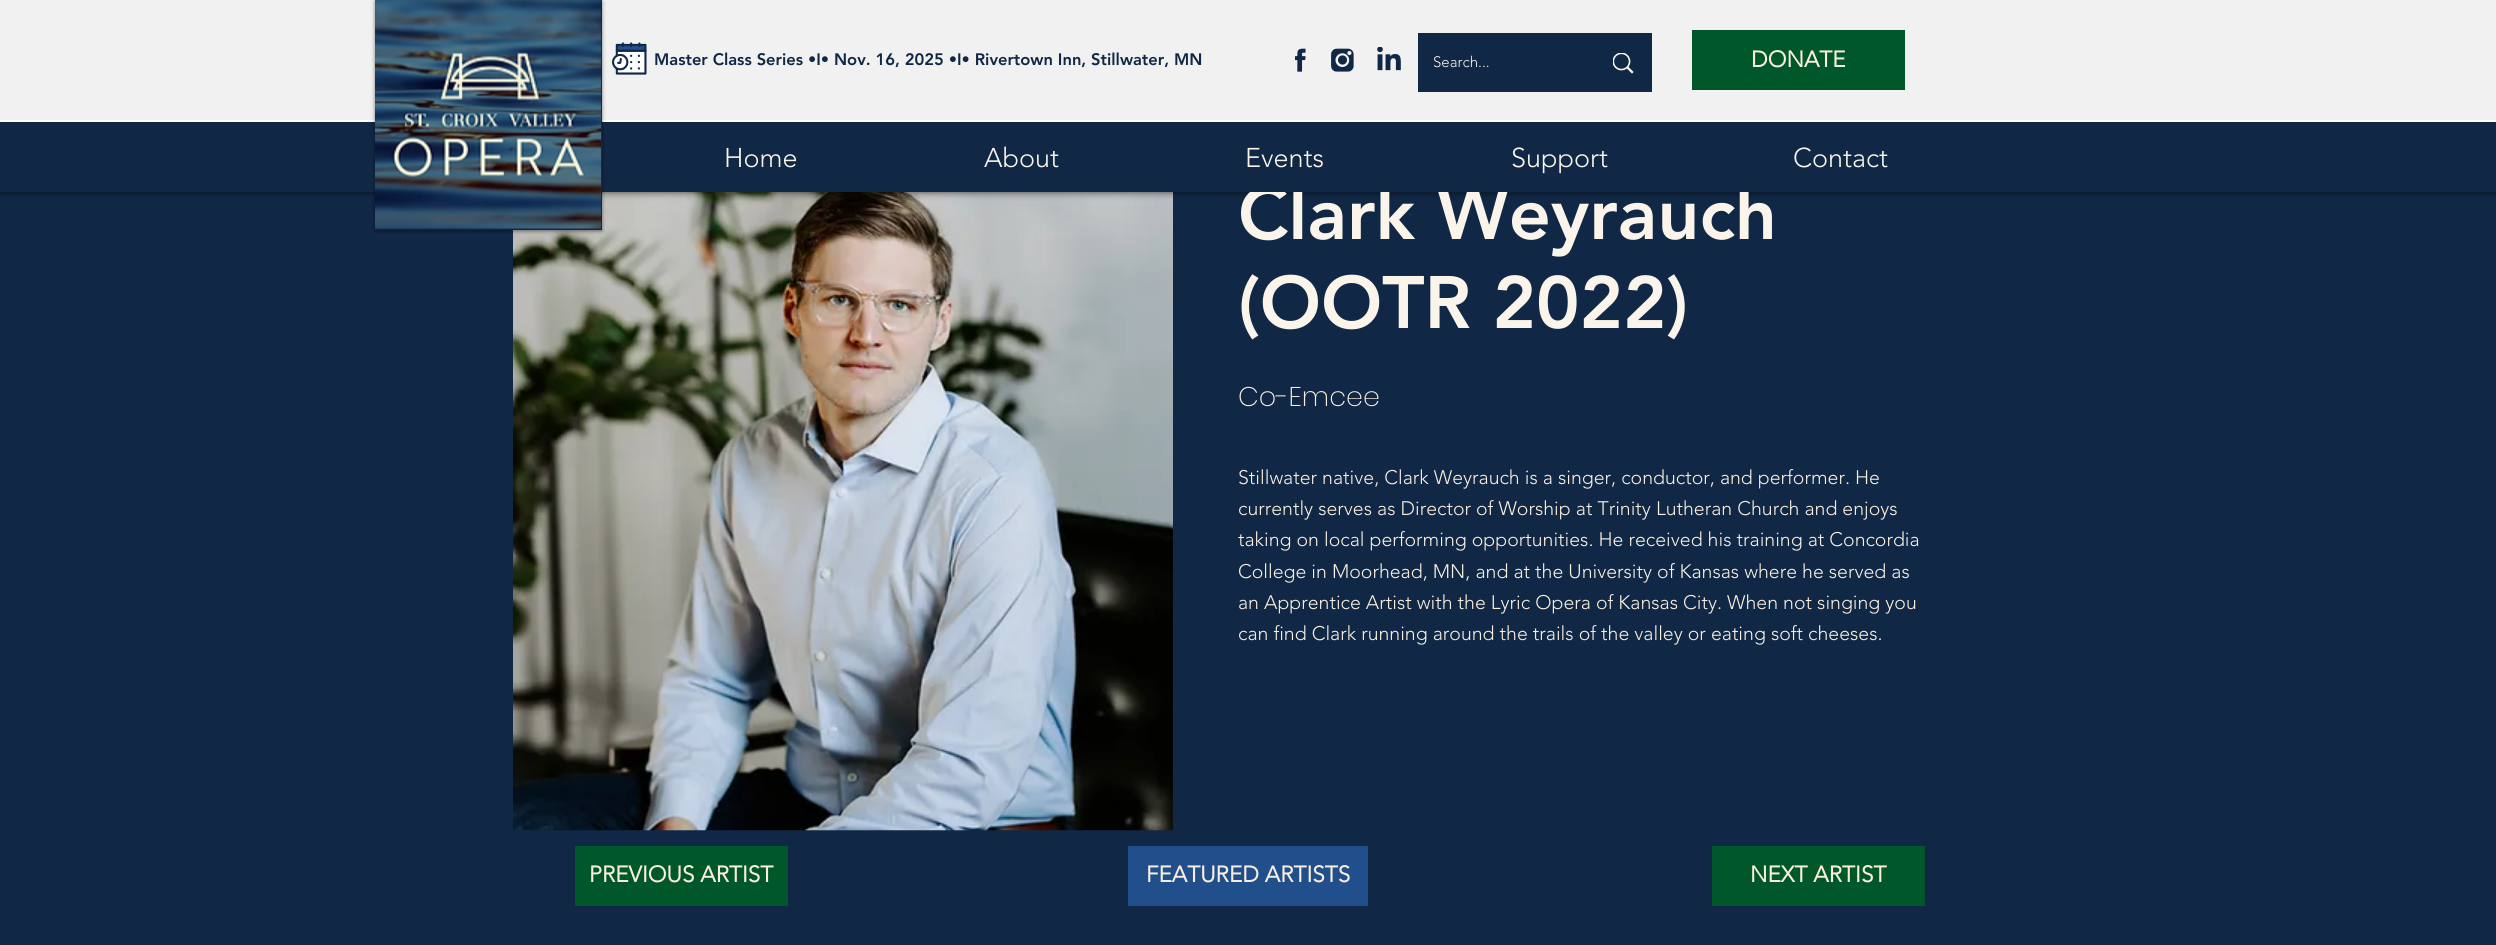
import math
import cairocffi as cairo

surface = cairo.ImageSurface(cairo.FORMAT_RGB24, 2496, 945)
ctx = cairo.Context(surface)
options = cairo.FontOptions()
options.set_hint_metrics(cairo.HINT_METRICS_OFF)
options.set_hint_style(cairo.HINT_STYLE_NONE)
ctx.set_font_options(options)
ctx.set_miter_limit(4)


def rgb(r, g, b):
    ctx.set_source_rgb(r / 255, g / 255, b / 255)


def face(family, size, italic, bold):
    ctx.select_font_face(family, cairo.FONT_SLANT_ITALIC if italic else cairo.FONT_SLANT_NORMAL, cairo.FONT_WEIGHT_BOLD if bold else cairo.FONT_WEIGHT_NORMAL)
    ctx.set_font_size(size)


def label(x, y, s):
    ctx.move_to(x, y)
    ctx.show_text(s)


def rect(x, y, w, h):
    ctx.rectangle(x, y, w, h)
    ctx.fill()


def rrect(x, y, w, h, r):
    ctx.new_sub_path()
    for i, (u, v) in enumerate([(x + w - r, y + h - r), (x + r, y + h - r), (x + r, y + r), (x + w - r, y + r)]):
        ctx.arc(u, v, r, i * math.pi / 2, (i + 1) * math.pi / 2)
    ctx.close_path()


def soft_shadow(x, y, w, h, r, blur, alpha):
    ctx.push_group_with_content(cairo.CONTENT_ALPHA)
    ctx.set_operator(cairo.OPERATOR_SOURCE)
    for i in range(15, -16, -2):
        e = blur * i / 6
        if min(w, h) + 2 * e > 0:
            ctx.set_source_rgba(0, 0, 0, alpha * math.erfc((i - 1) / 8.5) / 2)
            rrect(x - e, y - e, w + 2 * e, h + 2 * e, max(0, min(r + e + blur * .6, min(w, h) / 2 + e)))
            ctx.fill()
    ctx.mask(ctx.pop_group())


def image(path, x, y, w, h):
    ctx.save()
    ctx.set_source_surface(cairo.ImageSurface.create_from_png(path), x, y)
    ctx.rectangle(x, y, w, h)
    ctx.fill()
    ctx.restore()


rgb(16, 40, 70)
ctx.paint()
image('image6.png', 513, 192, 660, 639)
rgb(0, 0, 0)
soft_shadow(0, 0, 2496, 192, 0, 4, 0.7)
rgb(255, 255, 255)
rect(0, 120, 2496, 2)
rgb(241, 241, 241)
rect(0, 0, 2496, 120)
face('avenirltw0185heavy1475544 Black', 73.5, 0, 0)
rgb(250, 244, 235)
label(1238, 239, 'Clark Weyrauch')
rgb(16, 40, 70)
rect(0, 122, 2496, 70)
rgb(0, 0, 0)
soft_shadow(375, 2, 227, 229, 0, 2, 0.5)
rgb(16, 40, 70)
rect(375, 0, 227, 230)
image('image0.png', 375, 0, 227, 229)
image('image1.png', 612, 42, 35, 33)
face('avenirltw0185heavy1475544 Black', 16.5, 0, 0)
label(654, 65, 'Master Class Series •I• Nov. 16, 2025 •I• Rivertown Inn, Stillwater, MN')
image('image2.png', 1295, 48, 11, 24)
image('image3.png', 1331, 48, 23, 24)
image('image4.png', 1377, 47, 24, 24)
rect(1418, 33, 234, 59)
face('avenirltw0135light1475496 Light', 15, 0, 0)
rgb(250, 244, 235)
label(1433, 67, 'Search...')
image('image5.png', 1613, 53, 21, 21)
rgb(0, 88, 42)
rect(1692, 30, 213, 60)
face('avenirltw0135light1475496', 22.5, 0, 1)
rgb(249, 238, 223)
label(1751, 67, 'DONATE')
face('avenirltw0135light1475496 Light', 27, 0, 0)
rgb(250, 244, 235)
label(724, 167, 'Home')
label(984, 167, 'About')
label(1245, 167, 'Events')
label(1511, 167, 'Support')
label(1793, 167, 'Contact')
face('avenirltw0185heavy1475544 Black', 73.5, 0, 0)
label(1238, 328, '(OOTR 2022)')
face('Poppins ExtraLight', 27, 0, 0)
rgb(249, 238, 223)
label(1238, 406, 'Co-Emcee')
face('avenirltw0135light1475496 Light', 19.5, 0, 0)
label(1238, 484, 'Stillwater native, Clark Weyrauch is a singer, conductor, and performer. He')
label(1238, 515, 'currently serves as Director of Worship at Trinity Lutheran Church and enjoys')
label(1238, 546, 'taking on local performing opportunities. He received his training at Concordia')
label(1238, 578, 'College in Moorhead, MN, and at the University of Kansas where he served as')
label(1238, 609, 'an Apprentice Artist with the Lyric Opera of Kansas City. When not singing you')
label(1238, 640, 'can find Clark running around the trails of the valley or eating soft cheeses.')
rgb(0, 88, 42)
rect(575, 846, 213, 60)
face('avenirltw0135light1475496', 22.5, 0, 1)
rgb(249, 238, 223)
label(589, 882, 'PREVIOUS ARTIST')
rgb(32, 79, 140)
rect(1128, 846, 240, 60)
rgb(249, 238, 223)
label(1146, 882, 'FEATURED ARTISTS')
rgb(0, 88, 42)
rect(1712, 846, 213, 60)
rgb(249, 238, 223)
label(1750, 882, 'NEXT ARTIST')
surface.write_to_png('render.png')
